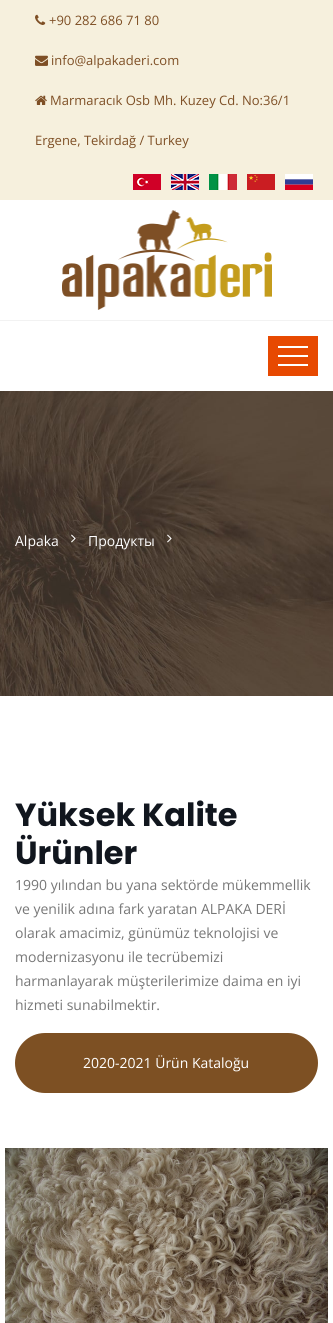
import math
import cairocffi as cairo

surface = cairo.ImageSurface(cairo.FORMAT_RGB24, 333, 1323)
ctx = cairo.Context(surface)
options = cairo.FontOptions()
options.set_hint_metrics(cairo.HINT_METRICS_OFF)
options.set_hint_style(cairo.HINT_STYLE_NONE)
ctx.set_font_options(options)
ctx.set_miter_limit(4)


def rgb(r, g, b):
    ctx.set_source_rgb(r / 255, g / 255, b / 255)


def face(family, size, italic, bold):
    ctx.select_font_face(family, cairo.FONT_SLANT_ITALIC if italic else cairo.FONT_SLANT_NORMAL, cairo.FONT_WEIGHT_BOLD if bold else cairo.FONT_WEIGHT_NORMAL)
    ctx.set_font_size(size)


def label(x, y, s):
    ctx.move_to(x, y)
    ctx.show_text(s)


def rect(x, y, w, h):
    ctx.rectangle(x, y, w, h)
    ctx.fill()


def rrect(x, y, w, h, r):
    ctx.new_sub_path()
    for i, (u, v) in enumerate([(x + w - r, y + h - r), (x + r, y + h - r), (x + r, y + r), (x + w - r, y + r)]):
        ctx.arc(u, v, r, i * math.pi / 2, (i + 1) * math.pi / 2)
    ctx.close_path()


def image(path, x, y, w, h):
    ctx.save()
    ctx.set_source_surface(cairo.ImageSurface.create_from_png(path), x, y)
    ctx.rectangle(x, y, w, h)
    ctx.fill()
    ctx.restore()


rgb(255, 255, 255)
ctx.paint()
rgb(246, 240, 221)
rect(0, 0, 333, 200)
image('image0.png', 35, 14, 11, 11)
face('Open Sans', 13, 0, 0)
rgb(126, 79, 37)
label(49, 25, '+90 282 686 71 80')
image('image1.png', 35, 55, 13, 11)
label(51, 65, 'info@alpakaderi.com')
image('image2.png', 35, 95, 12, 10)
label(50, 105, 'Marmaracık Osb Mh. Kuzey Cd. No:36/1')
label(35, 145, 'Ergene, Tekirdağ / Turkey')
image('image3.png', 133, 174, 28, 16)
image('image4.png', 171, 174, 28, 16)
image('image5.png', 209, 174, 28, 16)
image('image6.png', 247, 174, 28, 16)
image('image7.png', 285, 174, 28, 16)
image('image8.png', 62, 210, 210, 100)
rgb(242, 242, 242)
rect(0, 320, 333, 1)
rgb(231, 73, 1)
rect(268, 336, 50, 40)
rgb(255, 255, 255)
rect(278, 346, 30, 2)
rect(278, 355, 30, 2)
rect(278, 364, 30, 2)
image('image9.png', 0, 391, 333, 305)
face('Open Sans', 14, 0, 0)
label(15, 546, 'Alpaka')
image('image10.png', 71, 534, 5, 9)
label(88, 546, 'Продукты')
image('image11.png', 167, 534, 5, 9)
face('Poppins', 32, 0, 1)
rgb(17, 22, 30)
label(15, 826, 'Yüksek Kalite')
label(15, 864, 'Ürünler')
face('Open Sans', 14, 0, 0)
rgb(119, 119, 119)
label(15, 890, '1990 yılından bu yana sektörde mükemmellik')
label(15, 914, 've yenilik adına fark yaratan ALPAKA DERİ')
label(15, 938, 'olarak amacimiz, günümüz teknolojisi ve')
label(15, 962, 'modernizasyonu ile tecrübemizi')
label(15, 986, 'harmanlayarak müşterilerimize daima en iyi')
label(15, 1010, 'hizmeti sunabilmektir.')
rgb(125, 80, 35)
rrect(15, 1033, 303, 60, 30)
ctx.fill()
rgb(255, 255, 255)
label(83, 1068, '2020-2021 Ürün Kataloğu')
image('image12.png', 5, 1148, 323, 175)
surface.write_to_png('render.png')
